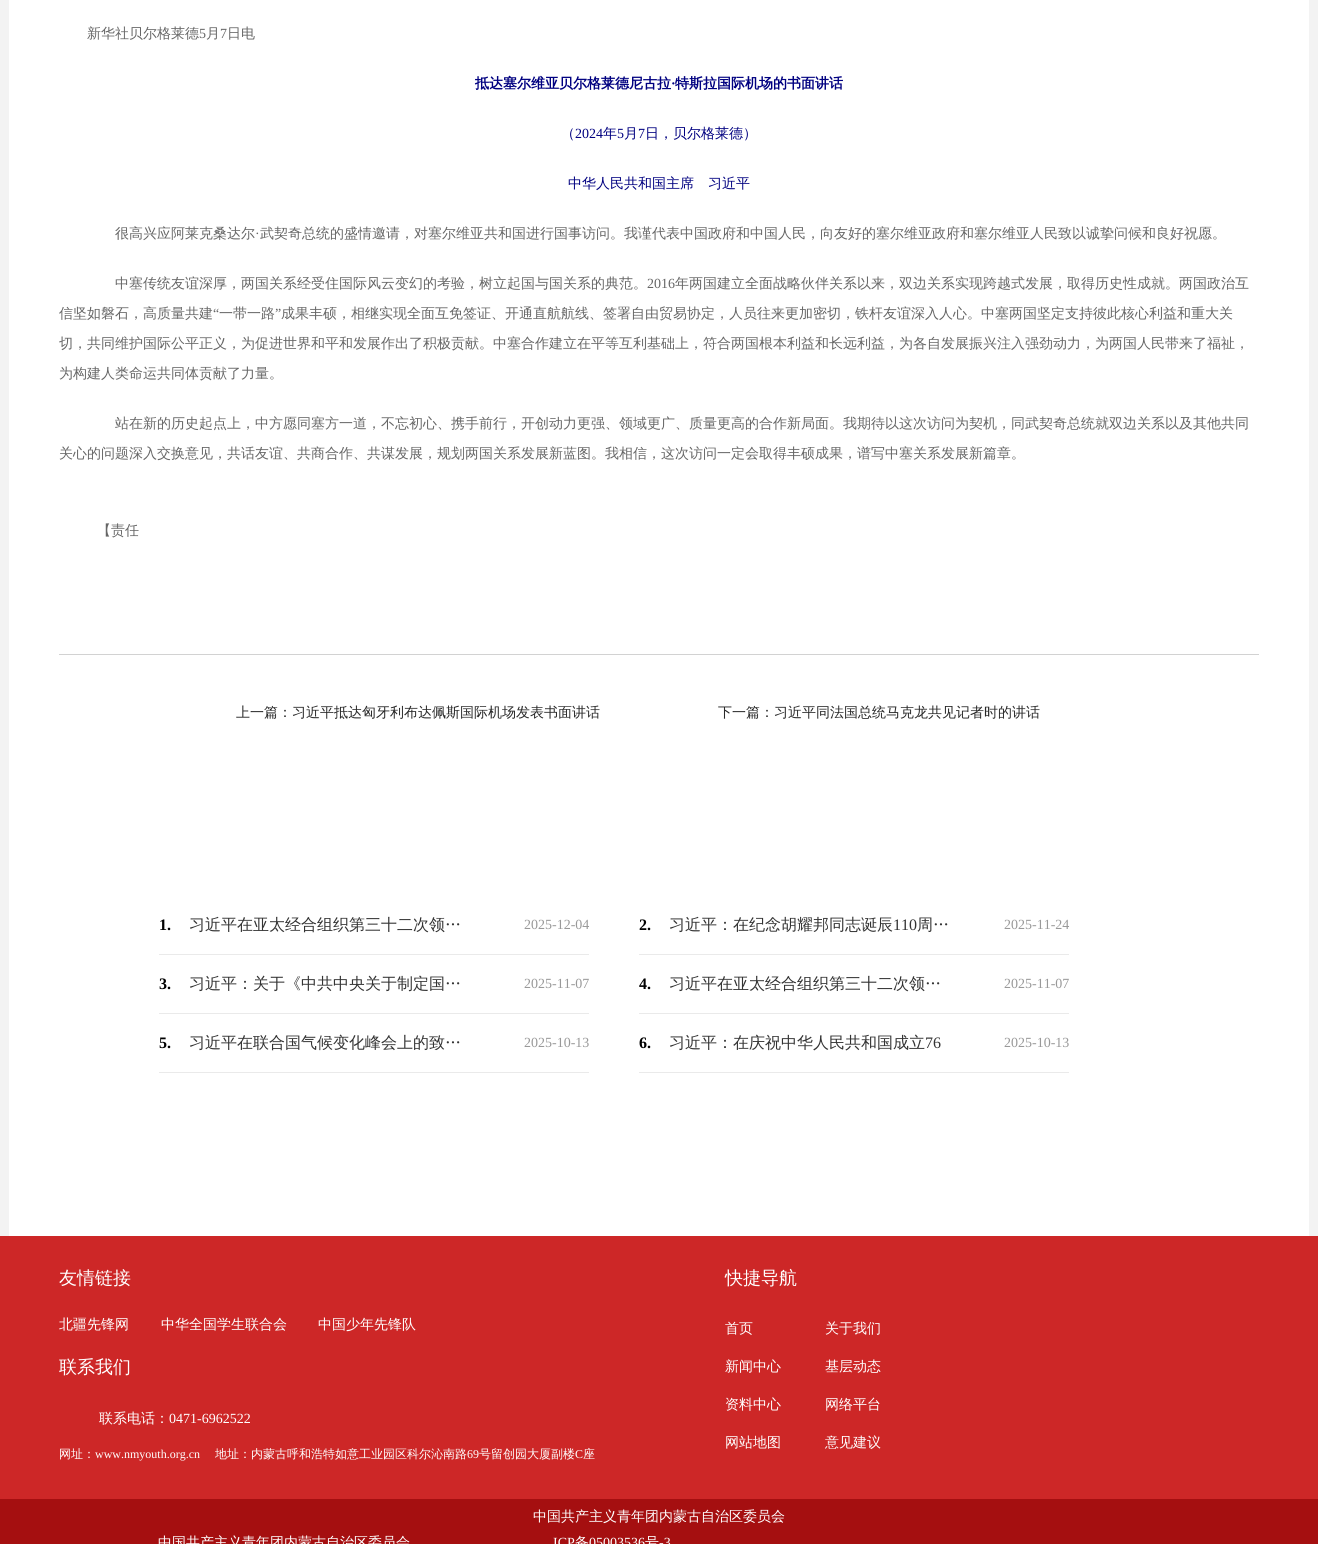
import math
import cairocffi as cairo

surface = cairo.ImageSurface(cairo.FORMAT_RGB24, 1318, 1544)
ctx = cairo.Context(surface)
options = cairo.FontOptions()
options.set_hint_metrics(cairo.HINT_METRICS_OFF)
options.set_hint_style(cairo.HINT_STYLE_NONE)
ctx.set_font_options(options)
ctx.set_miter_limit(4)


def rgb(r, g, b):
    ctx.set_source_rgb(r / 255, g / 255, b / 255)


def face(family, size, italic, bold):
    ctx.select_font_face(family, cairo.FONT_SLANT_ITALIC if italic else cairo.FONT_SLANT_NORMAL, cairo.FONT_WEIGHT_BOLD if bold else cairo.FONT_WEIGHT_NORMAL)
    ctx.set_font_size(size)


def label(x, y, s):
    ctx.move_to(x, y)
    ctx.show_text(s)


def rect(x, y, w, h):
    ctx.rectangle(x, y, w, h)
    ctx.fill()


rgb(243, 243, 243)
ctx.paint()
rgb(255, 255, 255)
rect(9, 0, 1300, 1236)
rgb(210, 210, 210)
rect(59, 654, 1200, 1)
face('WenQuanYi Zen Hei Medium', 14, 0, 0)
rgb(102, 102, 102)
label(87, 38, '新华社贝尔格莱德')
face('Liberation Serif', 14, 0, 0)
label(199, 38, '5')
face('WenQuanYi Zen Hei Medium', 14, 0, 0)
label(206, 38, '月')
face('Liberation Serif', 14, 0, 0)
label(220, 38, '7')
face('WenQuanYi Zen Hei Medium', 14, 0, 0)
label(227, 38, '日电')
face('WenQuanYi Zen Hei', 14, 0, 1)
rgb(0, 0, 128)
label(475, 88, '抵达塞尔维亚贝尔格莱德尼古拉')
face('Liberation Serif', 14, 0, 1)
label(671, 88, '·')
face('WenQuanYi Zen Hei', 14, 0, 1)
label(675, 88, '特斯拉国际机场的书面讲话')
face('WenQuanYi Zen Hei Medium', 14, 0, 0)
label(561, 138, '（')
face('Liberation Serif', 14, 0, 0)
label(575, 138, '2024')
face('WenQuanYi Zen Hei Medium', 14, 0, 0)
label(603, 138, '年')
face('Liberation Serif', 14, 0, 0)
label(617, 138, '5')
face('WenQuanYi Zen Hei Medium', 14, 0, 0)
label(624, 138, '月')
face('Liberation Serif', 14, 0, 0)
label(638, 138, '7')
face('WenQuanYi Zen Hei Medium', 14, 0, 0)
label(645, 138, '日，贝尔格莱德）')
label(568, 188, '中华人民共和国主席　习近平')
rgb(102, 102, 102)
label(115, 238, '很高兴应阿莱克桑达尔')
face('Liberation Serif', 14, 0, 0)
label(255, 238, '·')
face('WenQuanYi Zen Hei Medium', 14, 0, 0)
label(260, 238, '武契奇总统的盛情邀请，对塞尔维亚共和国进行国事访问。我谨代表中国政府和中国人民，向友好的塞尔维亚政府和塞尔维亚人民致以诚挚问候和良好祝愿。')
label(115, 288, '中塞传统友谊深厚，两国关系经受住国际风云变幻的考验，树立起国与国关系的典范。')
face('Liberation Serif', 14, 0, 0)
label(647, 288, '2016')
face('WenQuanYi Zen Hei Medium', 14, 0, 0)
label(675, 288, '年两国建立全面战略伙伴关系以来，双边关系实现跨越式发展，取得历史性成就。两国政治互')
label(59, 318, '信坚如磐石，高质量共建')
face('Liberation Serif', 14, 0, 0)
label(213, 318, '“')
face('WenQuanYi Zen Hei Medium', 14, 0, 0)
label(219, 318, '一带一路')
face('Liberation Serif', 14, 0, 0)
label(275, 318, '”')
face('WenQuanYi Zen Hei Medium', 14, 0, 0)
label(281, 318, '成果丰硕，相继实现全面互免签证、开通直航航线、签署自由贸易协定，人员往来更加密切，铁杆友谊深入人心。中塞两国坚定支持彼此核心利益和重大关')
label(59, 348, '切，共同维护国际公平正义，为促进世界和平和发展作出了积极贡献。中塞合作建立在平等互利基础上，符合两国根本利益和长远利益，为各自发展振兴注入强劲动力，为两国人民带来了福祉，')
label(59, 378, '为构建人类命运共同体贡献了力量。')
label(115, 428, '站在新的历史起点上，中方愿同塞方一道，不忘初心、携手前行，开创动力更强、领域更广、质量更高的合作新局面。我期待以这次访问为契机，同武契奇总统就双边关系以及其他共同')
label(59, 458, '关心的问题深入交换意见，共话友谊、共商合作、共谋发展，规划两国关系发展新蓝图。我相信，这次访问一定会取得丰硕成果，谱写中塞关系发展新篇章。')
label(97, 535, '【责任')
rgb(40, 40, 40)
label(236, 717, '上一篇：习近平抵达匈牙利布达佩斯国际机场发表书面讲话')
label(718, 717, '下一篇：习近平同法国总统马克龙共见记者时的讲话')
rgb(234, 234, 234)
rect(159, 954, 430, 1)
face('Liberation Serif', 16, 0, 1)
rgb(0, 0, 0)
label(159, 930, '1.')
face('WenQuanYi Zen Hei Medium', 16, 0, 0)
rgb(51, 51, 51)
label(189, 930, '习近平在亚太经合组织第三十二次领…')
face('Liberation Serif', 14, 0, 0)
rgb(153, 153, 153)
label(524, 929, '2025-12-04')
rgb(234, 234, 234)
rect(639, 954, 430, 1)
face('Liberation Serif', 16, 0, 1)
rgb(0, 0, 0)
label(639, 930, '2.')
face('WenQuanYi Zen Hei Medium', 16, 0, 0)
rgb(51, 51, 51)
label(669, 930, '习近平：在纪念胡耀邦同志诞辰')
face('Liberation Serif', 16, 0, 0)
label(893, 930, '110')
face('WenQuanYi Zen Hei Medium', 16, 0, 0)
label(917, 930, '周…')
face('Liberation Serif', 14, 0, 0)
rgb(153, 153, 153)
label(1004, 929, '2025-11-24')
rgb(234, 234, 234)
rect(159, 1013, 430, 1)
face('Liberation Serif', 16, 0, 1)
rgb(0, 0, 0)
label(159, 989, '3.')
face('WenQuanYi Zen Hei Medium', 16, 0, 0)
rgb(51, 51, 51)
label(189, 989, '习近平：关于《中共中央关于制定国…')
face('Liberation Serif', 14, 0, 0)
rgb(153, 153, 153)
label(524, 988, '2025-11-07')
rgb(234, 234, 234)
rect(639, 1013, 430, 1)
face('Liberation Serif', 16, 0, 1)
rgb(0, 0, 0)
label(639, 989, '4.')
face('WenQuanYi Zen Hei Medium', 16, 0, 0)
rgb(51, 51, 51)
label(669, 989, '习近平在亚太经合组织第三十二次领…')
face('Liberation Serif', 14, 0, 0)
rgb(153, 153, 153)
label(1004, 988, '2025-11-07')
rgb(234, 234, 234)
rect(159, 1072, 430, 1)
face('Liberation Serif', 16, 0, 1)
rgb(0, 0, 0)
label(159, 1048, '5.')
face('WenQuanYi Zen Hei Medium', 16, 0, 0)
rgb(51, 51, 51)
label(189, 1048, '习近平在联合国气候变化峰会上的致…')
face('Liberation Serif', 14, 0, 0)
rgb(153, 153, 153)
label(524, 1047, '2025-10-13')
rgb(234, 234, 234)
rect(639, 1072, 430, 1)
face('Liberation Serif', 16, 0, 1)
rgb(0, 0, 0)
label(639, 1048, '6.')
face('WenQuanYi Zen Hei Medium', 16, 0, 0)
rgb(51, 51, 51)
label(669, 1048, '习近平：在庆祝中华人民共和国成立')
face('Liberation Serif', 16, 0, 0)
label(925, 1048, '76')
face('Liberation Serif', 14, 0, 0)
rgb(153, 153, 153)
label(1004, 1047, '2025-10-13')
rgb(205, 39, 39)
rect(0, 1236, 1318, 263)
face('WenQuanYi Zen Hei Medium', 18, 0, 0)
rgb(255, 255, 255)
label(59, 1284, '友情链接')
face('WenQuanYi Zen Hei Medium', 14, 0, 0)
label(59, 1329, '北疆先锋网')
label(161, 1329, '中华全国学生联合会')
label(318, 1329, '中国少年先锋队')
face('WenQuanYi Zen Hei Medium', 18, 0, 0)
label(59, 1373, '联系我们')
face('WenQuanYi Zen Hei Medium', 14, 0, 0)
label(99, 1423, '联系电话：')
face('Liberation Serif', 14, 0, 0)
label(169, 1423, '0471-6962522')
face('WenQuanYi Zen Hei Medium', 12, 0, 0)
label(59, 1458, '网址：')
face('Liberation Serif', 12, 0, 0)
label(95, 1458, 'www.nmyouth.org.cn')
face('WenQuanYi Zen Hei Medium', 12, 0, 0)
label(215, 1458, '地址：内蒙古呼和浩特如意工业园区科尔沁南路')
face('Liberation Serif', 12, 0, 0)
label(467, 1458, '69')
face('WenQuanYi Zen Hei Medium', 12, 0, 0)
label(479, 1458, '号留创园大厦副楼')
face('Liberation Serif', 12, 0, 0)
label(575, 1458, 'C')
face('WenQuanYi Zen Hei Medium', 12, 0, 0)
label(583, 1458, '座')
face('WenQuanYi Zen Hei Medium', 18, 0, 0)
label(725, 1284, '快捷导航')
face('WenQuanYi Zen Hei Medium', 14, 0, 0)
label(725, 1333, '首页')
label(825, 1333, '关于我们')
label(725, 1371, '新闻中心')
label(825, 1371, '基层动态')
label(725, 1409, '资料中心')
label(825, 1409, '网络平台')
label(725, 1447, '网站地图')
label(825, 1447, '意见建议')
rgb(165, 15, 16)
rect(0, 1499, 1318, 45)
rgb(255, 255, 255)
label(533, 1521, '中国共产主义青年团内蒙古自治区委员会')
label(158, 1547, '中国共产主义青年团内蒙古自治区委员会')
face('Liberation Serif', 14, 0, 0)
label(553, 1547, 'ICP')
face('WenQuanYi Zen Hei Medium', 14, 0, 0)
label(575, 1547, '备')
face('Liberation Serif', 14, 0, 0)
label(589, 1547, '05003536')
face('WenQuanYi Zen Hei Medium', 14, 0, 0)
label(645, 1547, '号')
face('Liberation Serif', 14, 0, 0)
label(659, 1547, '-3')
surface.write_to_png('render.png')
